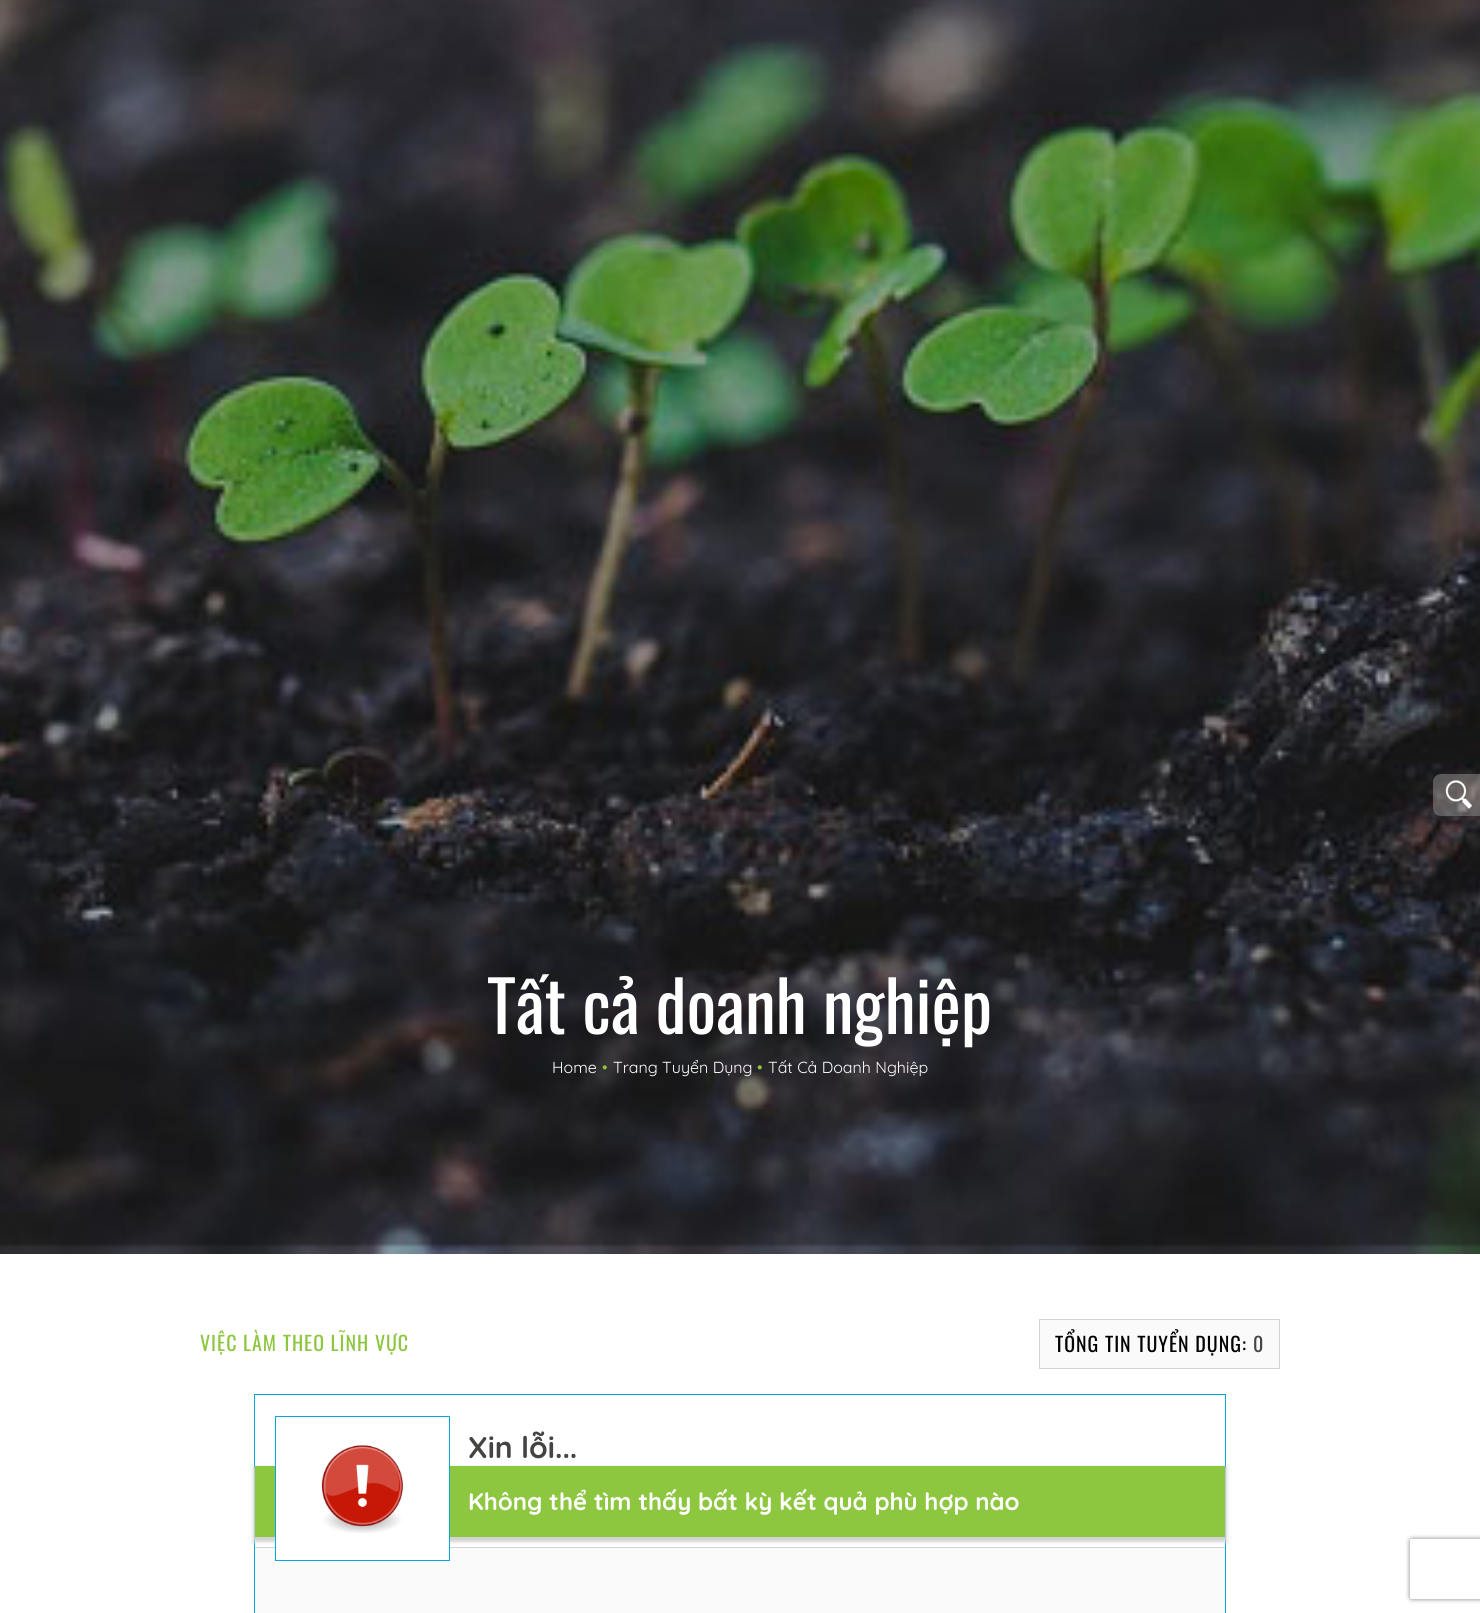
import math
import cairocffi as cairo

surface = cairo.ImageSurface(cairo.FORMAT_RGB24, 1480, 1613)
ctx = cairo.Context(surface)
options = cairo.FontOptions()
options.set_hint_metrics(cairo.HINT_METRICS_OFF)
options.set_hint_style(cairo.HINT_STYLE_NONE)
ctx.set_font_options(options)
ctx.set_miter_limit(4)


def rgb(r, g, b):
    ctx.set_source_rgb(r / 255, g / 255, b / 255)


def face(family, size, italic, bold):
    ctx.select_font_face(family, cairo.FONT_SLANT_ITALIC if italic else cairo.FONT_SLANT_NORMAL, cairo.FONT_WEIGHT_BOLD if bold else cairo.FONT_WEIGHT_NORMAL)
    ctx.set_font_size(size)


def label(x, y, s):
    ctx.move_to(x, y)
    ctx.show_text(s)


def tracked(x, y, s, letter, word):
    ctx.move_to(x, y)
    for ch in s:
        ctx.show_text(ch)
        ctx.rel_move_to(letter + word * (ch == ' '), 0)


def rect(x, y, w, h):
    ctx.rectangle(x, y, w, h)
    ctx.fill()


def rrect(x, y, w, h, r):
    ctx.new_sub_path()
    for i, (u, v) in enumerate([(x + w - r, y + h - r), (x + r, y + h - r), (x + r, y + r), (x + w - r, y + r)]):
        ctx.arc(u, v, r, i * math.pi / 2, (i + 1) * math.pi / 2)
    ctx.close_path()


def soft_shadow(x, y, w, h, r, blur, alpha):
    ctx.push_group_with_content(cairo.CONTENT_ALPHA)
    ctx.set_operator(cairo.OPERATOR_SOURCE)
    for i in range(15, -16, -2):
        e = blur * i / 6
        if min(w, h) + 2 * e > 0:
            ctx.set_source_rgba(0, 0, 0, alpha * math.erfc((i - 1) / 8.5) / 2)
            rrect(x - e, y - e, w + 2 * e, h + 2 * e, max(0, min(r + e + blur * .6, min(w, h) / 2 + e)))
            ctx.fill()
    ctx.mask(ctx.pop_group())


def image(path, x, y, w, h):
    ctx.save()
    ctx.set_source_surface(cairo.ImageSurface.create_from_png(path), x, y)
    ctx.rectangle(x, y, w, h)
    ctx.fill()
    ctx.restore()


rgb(255, 255, 255)
ctx.paint()
image('image0.png', 0, 0, 1480, 1254)
face('Oswald', 70, 0, 0)
rgb(255, 255, 255)
label(487, 1034, 'Tất cả doanh nghiệp')
face('Quicksand', 16, 0, 0)
label(552, 1073, 'Home')
rgb(141, 198, 63)
label(602, 1073, '•')
rgb(255, 255, 255)
label(613, 1073, 'Trang Tuyển Dụng')
rgb(141, 198, 63)
label(757, 1073, '•')
rgb(255, 255, 255)
label(768, 1073, 'Tất Cả Doanh Nghiệp')
ctx.set_source_rgba(0.584, 0.584, 0.584, 0.5)
ctx.new_path()
ctx.move_to(1441, 774)
ctx.line_to(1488, 774)
ctx.line_to(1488, 816)
ctx.line_to(1441, 816)
ctx.curve_to(1436.5, 816, 1433, 812.5, 1433, 808)
ctx.line_to(1433, 782)
ctx.curve_to(1433, 777.5, 1436.5, 774, 1441, 774)
ctx.close_path()
ctx.fill()
image('image1.png', 1445, 780, 28, 29)
face('Oswald', 20, 0, 0)
rgb(141, 198, 63)
tracked(200, 1351, 'VIỆC LÀM THEO LĨNH VỰC', 1, 0)
rgb(250, 250, 250)
ctx.rectangle(1039.5, 1319.5, 240, 49)
ctx.fill_preserve()
rgb(212, 212, 213)
ctx.set_line_width(1)
ctx.stroke()
rgb(0, 0, 0)
tracked(1055, 1352, 'TỔNG TIN TUYỂN DỤNG:', 1, 0)
rgb(68, 68, 66)
tracked(1253, 1352, '0', 1, 0)
ctx.rectangle(254.5, 1394.5, 971, 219)
rgb(0, 169, 224)
ctx.stroke()
face('Quicksand', 30, 0, 1)
rgb(68, 68, 66)
label(468, 1458, 'Xin lỗi...')
rgb(212, 212, 213)
rect(255, 1547, 970, 1)
rgb(212, 212, 213)
soft_shadow(253, 1467, 974, 75, 0, 1.5, 1)
rgb(141, 198, 63)
rect(255, 1466, 970, 71)
rgb(250, 250, 250)
rect(255, 1548, 970, 65)
rgb(255, 255, 255)
rect(276, 1465, 173, 95)
ctx.rectangle(275.5, 1416.5, 174, 144)
rgb(0, 169, 224)
ctx.stroke()
image('image2.png', 321, 1445, 83, 88)
face('Quicksand', 24, 0, 1)
rgb(255, 255, 255)
label(468, 1510, 'Không thể tìm thấy bất kỳ kết quả phù hợp nào')
ctx.save()
ctx.set_fill_rule(cairo.FILL_RULE_EVEN_ODD)
ctx.new_path()
ctx.move_to(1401, 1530)
ctx.line_to(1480, 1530)
ctx.line_to(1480, 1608)
ctx.line_to(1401, 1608)
ctx.close_path()
ctx.move_to(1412, 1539)
ctx.line_to(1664, 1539)
ctx.curve_to(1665, 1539, 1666, 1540, 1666, 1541)
ctx.line_to(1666, 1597)
ctx.curve_to(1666, 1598, 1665, 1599, 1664, 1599)
ctx.line_to(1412, 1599)
ctx.curve_to(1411, 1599, 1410, 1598, 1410, 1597)
ctx.line_to(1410, 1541)
ctx.curve_to(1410, 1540, 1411, 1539, 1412, 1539)
ctx.close_path()
ctx.clip()
rgb(128, 128, 128)
soft_shadow(1410, 1539, 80, 60, 2, 2.5, 1)
ctx.restore()
surface.write_to_png('render.png')
